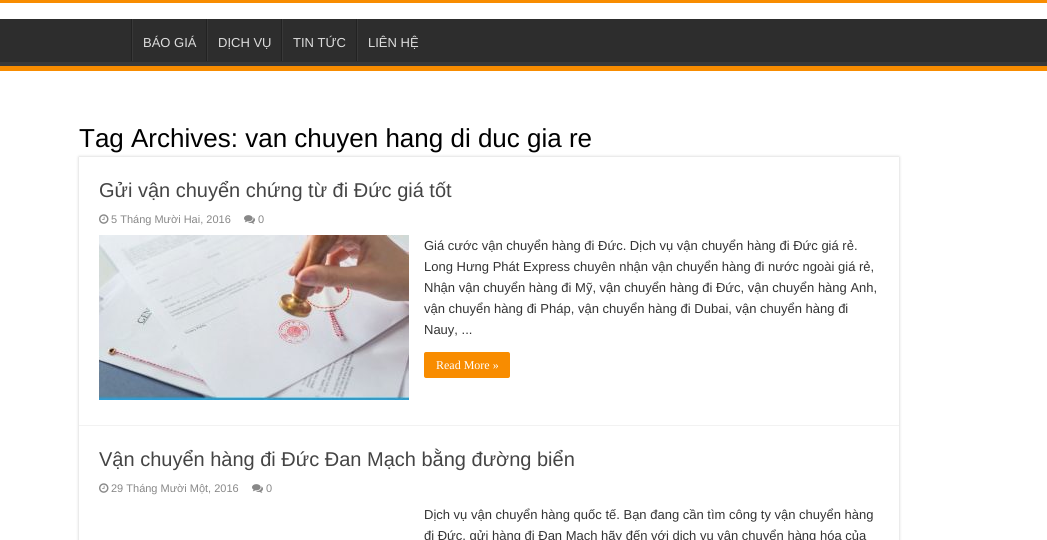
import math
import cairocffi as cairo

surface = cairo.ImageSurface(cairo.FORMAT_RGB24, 1047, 540)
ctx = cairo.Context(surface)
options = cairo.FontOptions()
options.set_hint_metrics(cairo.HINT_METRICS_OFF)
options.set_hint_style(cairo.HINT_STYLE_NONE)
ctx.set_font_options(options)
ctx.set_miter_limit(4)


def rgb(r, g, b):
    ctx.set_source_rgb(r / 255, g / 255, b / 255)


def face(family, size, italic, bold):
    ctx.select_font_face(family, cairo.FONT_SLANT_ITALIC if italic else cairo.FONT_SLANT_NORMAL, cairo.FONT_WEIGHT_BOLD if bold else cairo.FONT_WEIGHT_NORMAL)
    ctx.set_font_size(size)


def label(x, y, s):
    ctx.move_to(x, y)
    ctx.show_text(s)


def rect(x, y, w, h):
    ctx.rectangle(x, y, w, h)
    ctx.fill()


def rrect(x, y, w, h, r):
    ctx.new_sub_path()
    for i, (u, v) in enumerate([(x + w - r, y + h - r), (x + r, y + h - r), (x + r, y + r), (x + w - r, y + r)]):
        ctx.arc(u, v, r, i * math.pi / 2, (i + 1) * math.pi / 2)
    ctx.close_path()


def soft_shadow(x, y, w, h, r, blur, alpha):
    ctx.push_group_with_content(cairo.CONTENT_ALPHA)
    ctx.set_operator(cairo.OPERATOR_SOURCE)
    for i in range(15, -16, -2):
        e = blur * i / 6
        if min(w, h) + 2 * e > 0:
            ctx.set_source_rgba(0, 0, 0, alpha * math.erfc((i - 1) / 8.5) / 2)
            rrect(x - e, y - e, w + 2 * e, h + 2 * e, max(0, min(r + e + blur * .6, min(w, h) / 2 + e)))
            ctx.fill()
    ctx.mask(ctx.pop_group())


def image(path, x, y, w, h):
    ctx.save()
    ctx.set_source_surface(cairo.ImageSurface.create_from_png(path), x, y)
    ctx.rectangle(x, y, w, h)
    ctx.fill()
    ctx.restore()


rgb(255, 255, 255)
ctx.paint()
rgb(248, 140, 0)
rect(0, 0, 1047, 3)
rgb(45, 45, 45)
rect(0, 19, 1047, 43)
ctx.save()
ctx.rectangle(0, 19, 1047, 47)
ctx.clip()
rgb(57, 57, 57)
ctx.set_fill_rule(cairo.FILL_RULE_EVEN_ODD)
ctx.new_path()
ctx.move_to(-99, -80)
ctx.line_to(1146, -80)
ctx.line_to(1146, 165)
ctx.line_to(-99, 165)
ctx.close_path()
ctx.move_to(-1, 13)
ctx.line_to(1047, 13)
ctx.line_to(1047, 53)
ctx.curve_to(1047, 54, 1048, 62, 1046, 62)
ctx.line_to(-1, 62)
ctx.line_to(-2, 61)
ctx.line_to(-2, 13)
ctx.close_path()
ctx.fill()
ctx.restore()
rgb(248, 140, 0)
rect(0, 66, 1047, 5)
rgb(34, 34, 34)
rect(131, 19, 1, 42)
rgb(56, 56, 56)
rect(132, 19, 1, 42)
face('Liberation Sans', 13, 0, 0)
rgb(221, 221, 221)
label(143, 47, 'BÁO GIÁ')
rgb(34, 34, 34)
rect(206, 19, 1, 42)
rgb(56, 56, 56)
rect(207, 19, 1, 42)
rgb(221, 221, 221)
label(218, 47, 'DỊCH VỤ')
rgb(34, 34, 34)
rect(281, 19, 1, 42)
rgb(56, 56, 56)
rect(282, 19, 1, 42)
rgb(221, 221, 221)
label(293, 47, 'TIN TỨC')
rgb(34, 34, 34)
rect(356, 19, 1, 42)
rgb(56, 56, 56)
rect(357, 19, 1, 42)
rgb(221, 221, 221)
label(368, 47, 'LIÊN HỆ')
ctx.save()
ctx.set_fill_rule(cairo.FILL_RULE_EVEN_ODD)
ctx.new_path()
ctx.move_to(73, 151)
ctx.line_to(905, 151)
ctx.line_to(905, 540)
ctx.line_to(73, 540)
ctx.close_path()
ctx.move_to(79, 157)
ctx.line_to(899, 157)
ctx.line_to(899, 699)
ctx.line_to(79, 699)
ctx.close_path()
ctx.clip()
rgb(202, 202, 202)
soft_shadow(79, 157, 820, 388, 0, 1.5, 1)
ctx.restore()
face('Liberation Sans', 26, 0, 0)
rgb(0, 0, 0)
label(79, 147, 'Tag Archives: van chuyen hang di duc gia re')
rgb(242, 242, 242)
rect(79, 425, 820, 1)
face('Liberation Sans', 20, 0, 0)
rgb(68, 68, 68)
label(99, 197, 'Gửi vận chuyển chứng từ đi Đức giá tốt')
image('image0.png', 99, 214, 10, 10)
face('Liberation Sans', 11, 0, 0)
rgb(136, 136, 136)
label(111, 223, '5 Tháng Mười Hai, 2016')
image('image1.png', 244, 215, 11, 9)
label(258, 223, '0')
image('image2.png', 99, 235, 310, 165)
face('Liberation Sans', 13, 0, 0)
rgb(51, 51, 51)
label(424, 250, 'Giá cước vận chuyển hàng đi Đức. Dịch vụ vận chuyển hàng đi Đức giá rẻ.')
label(424, 271, 'Long Hưng Phát Express chuyên nhận vận chuyển hàng đi nước ngoài giá rẻ,')
label(424, 292, 'Nhận vận chuyển hàng đi Mỹ, vận chuyển hàng đi Đức, vận chuyển hàng Anh,')
label(424, 313, 'vận chuyển hàng đi Pháp, vận chuyển hàng đi Dubai, vận chuyển hàng đi')
label(424, 334, 'Nauy, ...')
rgb(248, 140, 0)
rrect(424, 352, 86, 26, 2)
ctx.fill()
face('Liberation Serif', 12, 0, 0)
rgb(255, 255, 255)
label(436, 369, 'Read More »')
face('Liberation Sans', 20, 0, 0)
rgb(68, 68, 68)
label(99, 466, 'Vận chuyển hàng đi Đức Đan Mạch bằng đường biển')
image('image0.png', 99, 483, 10, 10)
face('Liberation Sans', 11, 0, 0)
rgb(136, 136, 136)
label(111, 492, '29 Tháng Mười Một, 2016')
image('image1.png', 252, 484, 11, 9)
label(266, 492, '0')
face('Liberation Sans', 13, 0, 0)
rgb(51, 51, 51)
label(424, 519, 'Dịch vụ vận chuyển hàng quốc tế. Bạn đang cần tìm công ty vận chuyển hàng')
label(424, 540, 'đi Đức, gửi hàng đi Đan Mạch hãy đến với dịch vụ vận chuyển hàng hóa của')
surface.write_to_png('render.png')
